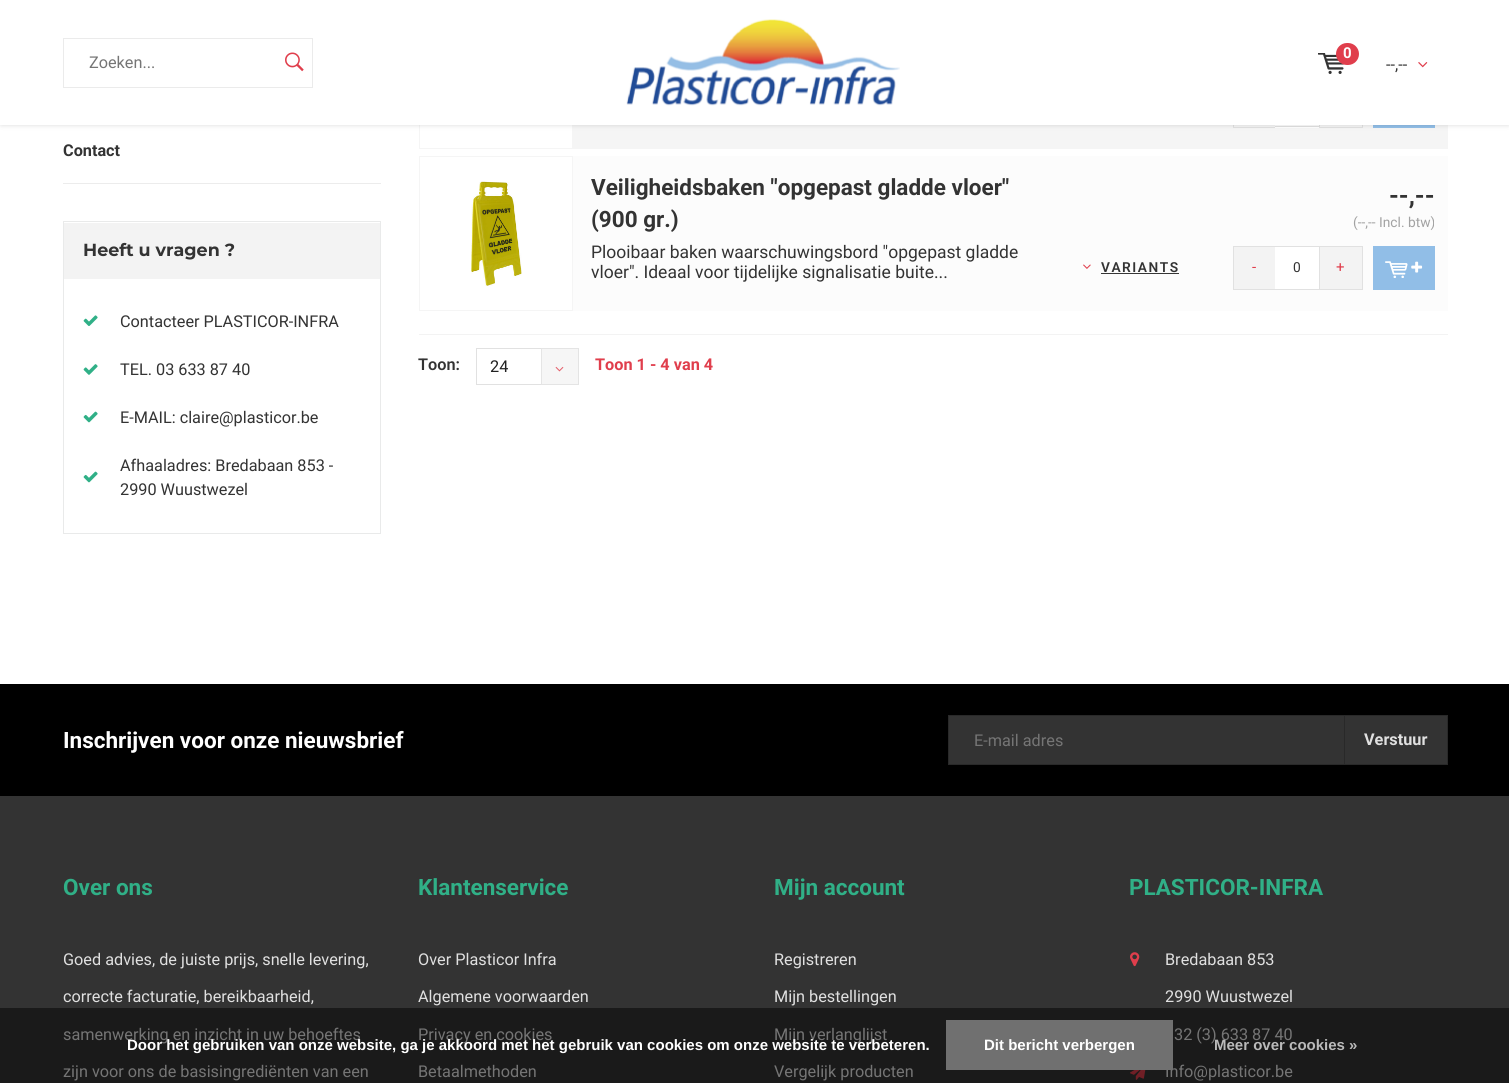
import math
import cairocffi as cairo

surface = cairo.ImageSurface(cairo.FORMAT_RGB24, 1509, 1083)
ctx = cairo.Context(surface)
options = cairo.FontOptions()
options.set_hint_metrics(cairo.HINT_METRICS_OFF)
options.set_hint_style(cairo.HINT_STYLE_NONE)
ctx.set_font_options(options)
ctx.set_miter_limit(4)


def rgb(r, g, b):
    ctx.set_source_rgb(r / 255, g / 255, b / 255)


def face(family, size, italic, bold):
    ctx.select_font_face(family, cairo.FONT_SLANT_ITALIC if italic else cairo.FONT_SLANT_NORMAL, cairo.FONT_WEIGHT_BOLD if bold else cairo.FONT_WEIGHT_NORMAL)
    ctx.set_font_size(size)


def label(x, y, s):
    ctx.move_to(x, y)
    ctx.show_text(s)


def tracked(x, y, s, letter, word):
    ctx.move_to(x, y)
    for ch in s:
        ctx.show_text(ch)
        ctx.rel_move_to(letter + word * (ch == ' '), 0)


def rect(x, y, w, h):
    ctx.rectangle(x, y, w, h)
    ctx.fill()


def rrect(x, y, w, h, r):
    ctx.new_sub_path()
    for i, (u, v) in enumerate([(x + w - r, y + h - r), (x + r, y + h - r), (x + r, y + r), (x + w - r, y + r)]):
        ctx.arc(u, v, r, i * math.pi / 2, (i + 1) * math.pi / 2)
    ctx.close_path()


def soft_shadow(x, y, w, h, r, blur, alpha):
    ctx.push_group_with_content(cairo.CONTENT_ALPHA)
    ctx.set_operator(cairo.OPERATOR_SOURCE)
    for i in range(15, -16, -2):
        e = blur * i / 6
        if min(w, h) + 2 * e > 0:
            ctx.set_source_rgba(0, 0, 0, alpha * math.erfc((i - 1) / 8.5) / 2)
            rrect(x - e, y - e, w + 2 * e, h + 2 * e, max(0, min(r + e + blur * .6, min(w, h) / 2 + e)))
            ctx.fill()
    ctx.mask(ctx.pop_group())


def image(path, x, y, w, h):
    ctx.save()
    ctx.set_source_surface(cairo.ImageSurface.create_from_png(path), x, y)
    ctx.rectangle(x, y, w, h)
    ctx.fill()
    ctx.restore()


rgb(255, 255, 255)
ctx.paint()
rgb(245, 245, 245)
rect(573, 125, 875, 24)
ctx.rectangle(419.5, -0.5, 153, 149)
ctx.set_line_width(1)
ctx.stroke()
ctx.rectangle(1233.5, 84.5, 42, 43)
rgb(225, 225, 225)
ctx.stroke()
rgb(255, 255, 255)
rect(1275, 125, 44, 3)
rgb(225, 225, 225)
rect(1275, 126, 44, 1)
ctx.rectangle(1319.5, 84.5, 43, 43)
ctx.stroke()
rgb(145, 190, 231)
rect(1373, 125, 62, 3)
rgb(0, 0, 0)
soft_shadow(1, 1, 1508, 123, 0, 3, 0.2)
rgb(255, 255, 255)
rect(0, 0, 1509, 125)
ctx.rectangle(63.5, 38.5, 249, 49)
rgb(235, 235, 235)
ctx.stroke()
face('Roboto', 16.25, 0, 0)
rgb(117, 117, 117)
label(89, 68, 'Zoeken...')
image('image0.png', 285, 52, 19, 20)
image('image1.png', 626, 19, 274, 87)
image('image2.png', 1318, 53, 26, 21)
rgb(224, 62, 76)
rrect(1336, 43, 23, 22, 11)
ctx.fill()
face('Roboto', 15, 0, 1)
rgb(255, 255, 255)
label(1343, 58, '0')
face('Roboto', 16.25, 0, 0)
rgb(51, 51, 51)
label(1386, 70, '--,--')
image('image3.png', 1418, 62, 10, 6)
rgb(236, 236, 236)
rect(63, 183, 318, 1)
face('Roboto', 16.25, 0, 1)
rgb(51, 51, 51)
label(63, 156, 'Contact')
ctx.rectangle(63.5, 221.5, 317, 312)
rgb(233, 234, 234)
ctx.stroke()
rgb(243, 243, 243)
rect(64, 223, 316, 56)
face('Montserrat', 17.5, 0, 1)
rgb(51, 51, 51)
label(83, 256, 'Heeft u vragen ?')
image('image4.png', 83, 315, 15, 11)
face('Roboto', 16.25, 0, 0)
label(120, 327, 'Contacteer PLASTICOR-INFRA')
image('image5.png', 83, 364, 15, 11)
label(120, 375, 'TEL. 03 633 87 40')
image('image6.png', 83, 411, 15, 12)
label(120, 423, 'E-MAIL: claire@plasticor.be')
image('image6.png', 83, 471, 15, 12)
label(120, 471, 'Afhaaladres: Bredabaan 853 -')
label(120, 495, '2990 Wuustwezel')
rgb(252, 252, 252)
rect(573, 156, 875, 155)
ctx.rectangle(419.5, 156.5, 153, 154)
rgb(245, 245, 245)
ctx.stroke()
image('image7.png', 471, 181, 51, 105)
face('Roboto', 22.5, 0, 1)
rgb(51, 51, 51)
label(591, 195, 'Veiligheidsbaken "opgepast gladde vloer"')
label(591, 227, '(900 gr.)')
face('Roboto', 17.5, 0, 0)
label(591, 258, 'Plooibaar baken waarschuwingsbord "opgepast gladde')
label(591, 278, 'vloer". Ideaal voor tijdelijke signalisatie buite...')
face('Roboto', 25, 0, 1)
label(1389, 204, '--,--')
face('Roboto', 13.75, 0, 0)
rgb(162, 162, 162)
label(1353, 227, '(--,-- Incl. btw)')
image('image8.png', 1083, 264, 8, 5)
face('Roboto SemiBold', 13.75, 0, 0)
rgb(51, 51, 51)
tracked(1101, 272, 'VARIANTS', 1.5, 0)
rgb(54, 54, 54)
rect(1101, 273, 78, 1)
rgb(243, 243, 243)
ctx.rectangle(1233.5, 246.5, 42, 43)
ctx.fill_preserve()
rgb(225, 225, 225)
ctx.stroke()
face('Roboto', 15, 0, 0)
rgb(224, 62, 76)
label(1252, 272, '-')
rgb(255, 255, 255)
rect(1275, 247, 44, 42)
rgb(225, 225, 225)
rect(1275, 246, 44, 1)
rect(1275, 289, 44, 1)
face('Roboto', 13.75, 0, 0)
rgb(51, 51, 51)
label(1293, 272, '0')
rgb(243, 243, 243)
ctx.rectangle(1319.5, 246.5, 43, 43)
ctx.fill_preserve()
rgb(225, 225, 225)
ctx.stroke()
face('Roboto', 15, 0, 0)
rgb(224, 62, 76)
label(1336, 272, '+')
rgb(145, 190, 231)
rect(1373, 246, 62, 44)
image('image9.png', 1385, 261, 23, 17)
image('image10.png', 1411, 261, 12, 12)
rgb(243, 243, 243)
rect(419, 334, 1029, 1)
face('Roboto SemiBold', 16.25, 0, 0)
rgb(51, 51, 51)
label(418, 370, 'Toon:')
ctx.rectangle(476.5, 348.5, 102, 36)
rgb(225, 225, 225)
ctx.stroke()
face('Roboto', 16.25, 0, 0)
rgb(33, 33, 33)
label(490, 372, '24')
ctx.set_source_rgba(0.953, 0.953, 0.953, 0.8)
rect(541, 348, 38, 37)
ctx.rectangle(541.5, 348.5, 37, 36)
ctx.set_source_rgba(0.882, 0.882, 0.882, 0.8)
ctx.stroke()
image('image11.png', 555, 366, 9, 6)
face('Roboto', 16.25, 0, 1)
rgb(224, 62, 76)
label(595, 370, 'Toon 1 - 4 van 4')
rgb(51, 51, 51)
rect(0, 796, 1509, 212)
rgb(26, 26, 26)
rect(0, 1008, 1509, 75)
rgb(0, 0, 0)
rect(0, 684, 1509, 112)
face('Roboto', 22.5, 0, 1)
rgb(255, 255, 255)
label(63, 748, 'Inschrijven voor onze nieuwsbrief')
rgb(51, 51, 51)
rect(949, 716, 395, 48)
ctx.rectangle(948.5, 715.5, 499, 49)
rgb(41, 41, 41)
ctx.stroke()
face('Roboto', 16.25, 0, 0)
rgb(117, 117, 117)
label(974, 746, 'E-mail adres')
rgb(51, 51, 51)
ctx.rectangle(1344.5, 715.5, 103, 49)
ctx.fill_preserve()
rgb(41, 41, 41)
ctx.stroke()
face('Roboto', 16.25, 0, 1)
rgb(224, 224, 224)
label(1364, 745, 'Verstuur')
face('Roboto', 22.5, 0, 1)
rgb(48, 176, 135)
label(63, 895, 'Over ons')
face('Roboto', 16.25, 0, 0)
rgb(224, 224, 224)
label(63, 965, 'Goed advies, de juiste prijs, snelle levering,')
label(63, 1002, 'correcte facturatie, bereikbaarheid,')
rgb(117, 117, 117)
label(63, 1040, 'samenwerking en inzicht in uw behoeftes')
label(63, 1077, 'zijn voor ons de basisingrediënten van een')
face('Roboto', 22.5, 0, 1)
rgb(48, 176, 135)
label(418, 895, 'Klantenservice')
face('Roboto', 16.25, 0, 0)
rgb(224, 224, 224)
label(418, 965, 'Over Plasticor Infra')
label(418, 1002, 'Algemene voorwaarden')
rgb(117, 117, 117)
label(418, 1040, 'Privacy en cookies')
label(418, 1077, 'Betaalmethoden')
face('Roboto', 22.5, 0, 1)
rgb(48, 176, 135)
label(774, 895, 'Mijn account')
face('Roboto', 16.25, 0, 0)
rgb(224, 224, 224)
label(774, 965, 'Registreren')
label(774, 1002, 'Mijn bestellingen')
rgb(117, 117, 117)
label(774, 1040, 'Mijn verlanglijst')
label(774, 1077, 'Vergelijk producten')
face('Roboto', 22.5, 0, 1)
rgb(48, 176, 135)
label(1129, 895, 'PLASTICOR-INFRA')
image('image12.png', 1130, 952, 10, 15)
face('Roboto', 16.25, 0, 0)
rgb(224, 224, 224)
label(1165, 965, 'Bredabaan 853')
label(1165, 1002, '2990 Wuustwezel')
rgb(117, 117, 117)
label(1174, 1040, '32 (3) 633 87 40')
image('image13.png', 1130, 1070, 16, 10)
label(1165, 1077, 'Info@plasticor.be')
face('Liberation Sans', 15, 0, 1)
rgb(255, 255, 255)
label(127, 1050, 'Door het gebruiken van onze website, ga je akkoord met het gebruik van cookies om onze website te verbeteren.')
rgb(112, 112, 112)
rect(946, 1020, 227, 50)
rgb(255, 255, 255)
label(984, 1050, 'Dit bericht verbergen')
rgb(186, 186, 186)
label(1214, 1050, 'Meer over cookies »')
surface.write_to_png('render.png')
